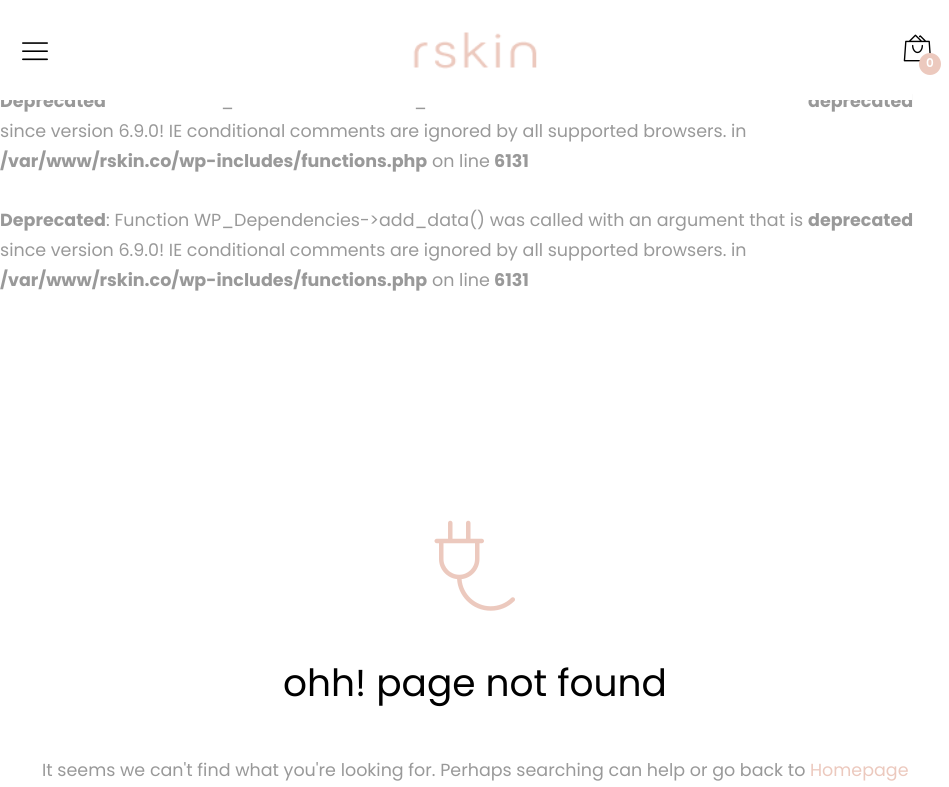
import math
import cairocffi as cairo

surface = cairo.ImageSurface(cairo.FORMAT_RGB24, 949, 787)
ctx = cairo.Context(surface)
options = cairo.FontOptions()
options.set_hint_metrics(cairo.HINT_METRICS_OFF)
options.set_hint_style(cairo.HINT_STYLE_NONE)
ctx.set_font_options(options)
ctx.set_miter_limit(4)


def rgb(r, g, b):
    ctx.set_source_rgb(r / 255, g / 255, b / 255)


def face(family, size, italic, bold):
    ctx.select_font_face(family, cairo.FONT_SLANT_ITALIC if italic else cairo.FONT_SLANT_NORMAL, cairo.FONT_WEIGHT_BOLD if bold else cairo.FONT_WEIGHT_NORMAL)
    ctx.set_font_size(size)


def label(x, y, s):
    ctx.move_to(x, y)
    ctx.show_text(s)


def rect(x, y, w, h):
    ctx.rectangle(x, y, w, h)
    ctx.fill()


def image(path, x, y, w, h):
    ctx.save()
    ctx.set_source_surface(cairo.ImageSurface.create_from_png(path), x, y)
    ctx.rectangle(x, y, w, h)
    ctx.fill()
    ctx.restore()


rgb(255, 255, 255)
ctx.paint()
face('Poppins', 17.5, 0, 1)
rgb(153, 153, 153)
label(0, 107, 'Deprecated')
label(808, 107, 'deprecated')
rgb(255, 255, 255)
rect(1, 94, 911, 6)
image('image0.png', 22, 42, 26, 19)
image('image1.png', 413, 32, 124, 37)
image('image2.png', 903, 34, 28, 28)
rgb(236, 201, 190)
ctx.arc(930, 64, 11, 0, 2 * math.pi)
ctx.fill()
face('Poppins SemiBold', 12, 0, 0)
rgb(255, 255, 255)
label(926, 67, '0')
image('image3.png', 434, 520, 81, 91)
face('Poppins', 37.5, 0, 0)
rgb(0, 0, 0)
label(283, 696, 'ohh! page not found')
face('Poppins', 17.5, 0, 0)
rgb(153, 153, 153)
label(42, 776, 'It seems we can\'t find what you\'re looking for. Perhaps searching can help or go back to')
rgb(236, 201, 190)
label(810, 776, 'Homepage')
rgb(153, 153, 153)
label(221, 107, '_')
label(414, 107, '_')
label(0, 137, 'since version 6.9.0! IE conditional comments are ignored by all supported browsers. in')
face('Poppins', 17.5, 0, 1)
label(0, 167, '/var/www/rskin.co/wp-includes/functions.php')
face('Poppins', 17.5, 0, 0)
label(432, 167, 'on line')
face('Poppins', 17.5, 0, 1)
label(494, 167, '6131')
label(0, 226, 'Deprecated')
face('Poppins', 17.5, 0, 0)
label(106, 226, ': Function WP_Dependencies->add_data() was called with an argument that is')
face('Poppins', 17.5, 0, 1)
label(808, 226, 'deprecated')
face('Poppins', 17.5, 0, 0)
label(0, 256, 'since version 6.9.0! IE conditional comments are ignored by all supported browsers. in')
face('Poppins', 17.5, 0, 1)
label(0, 286, '/var/www/rskin.co/wp-includes/functions.php')
face('Poppins', 17.5, 0, 0)
label(432, 286, 'on line')
face('Poppins', 17.5, 0, 1)
label(494, 286, '6131')
surface.write_to_png('render.png')
